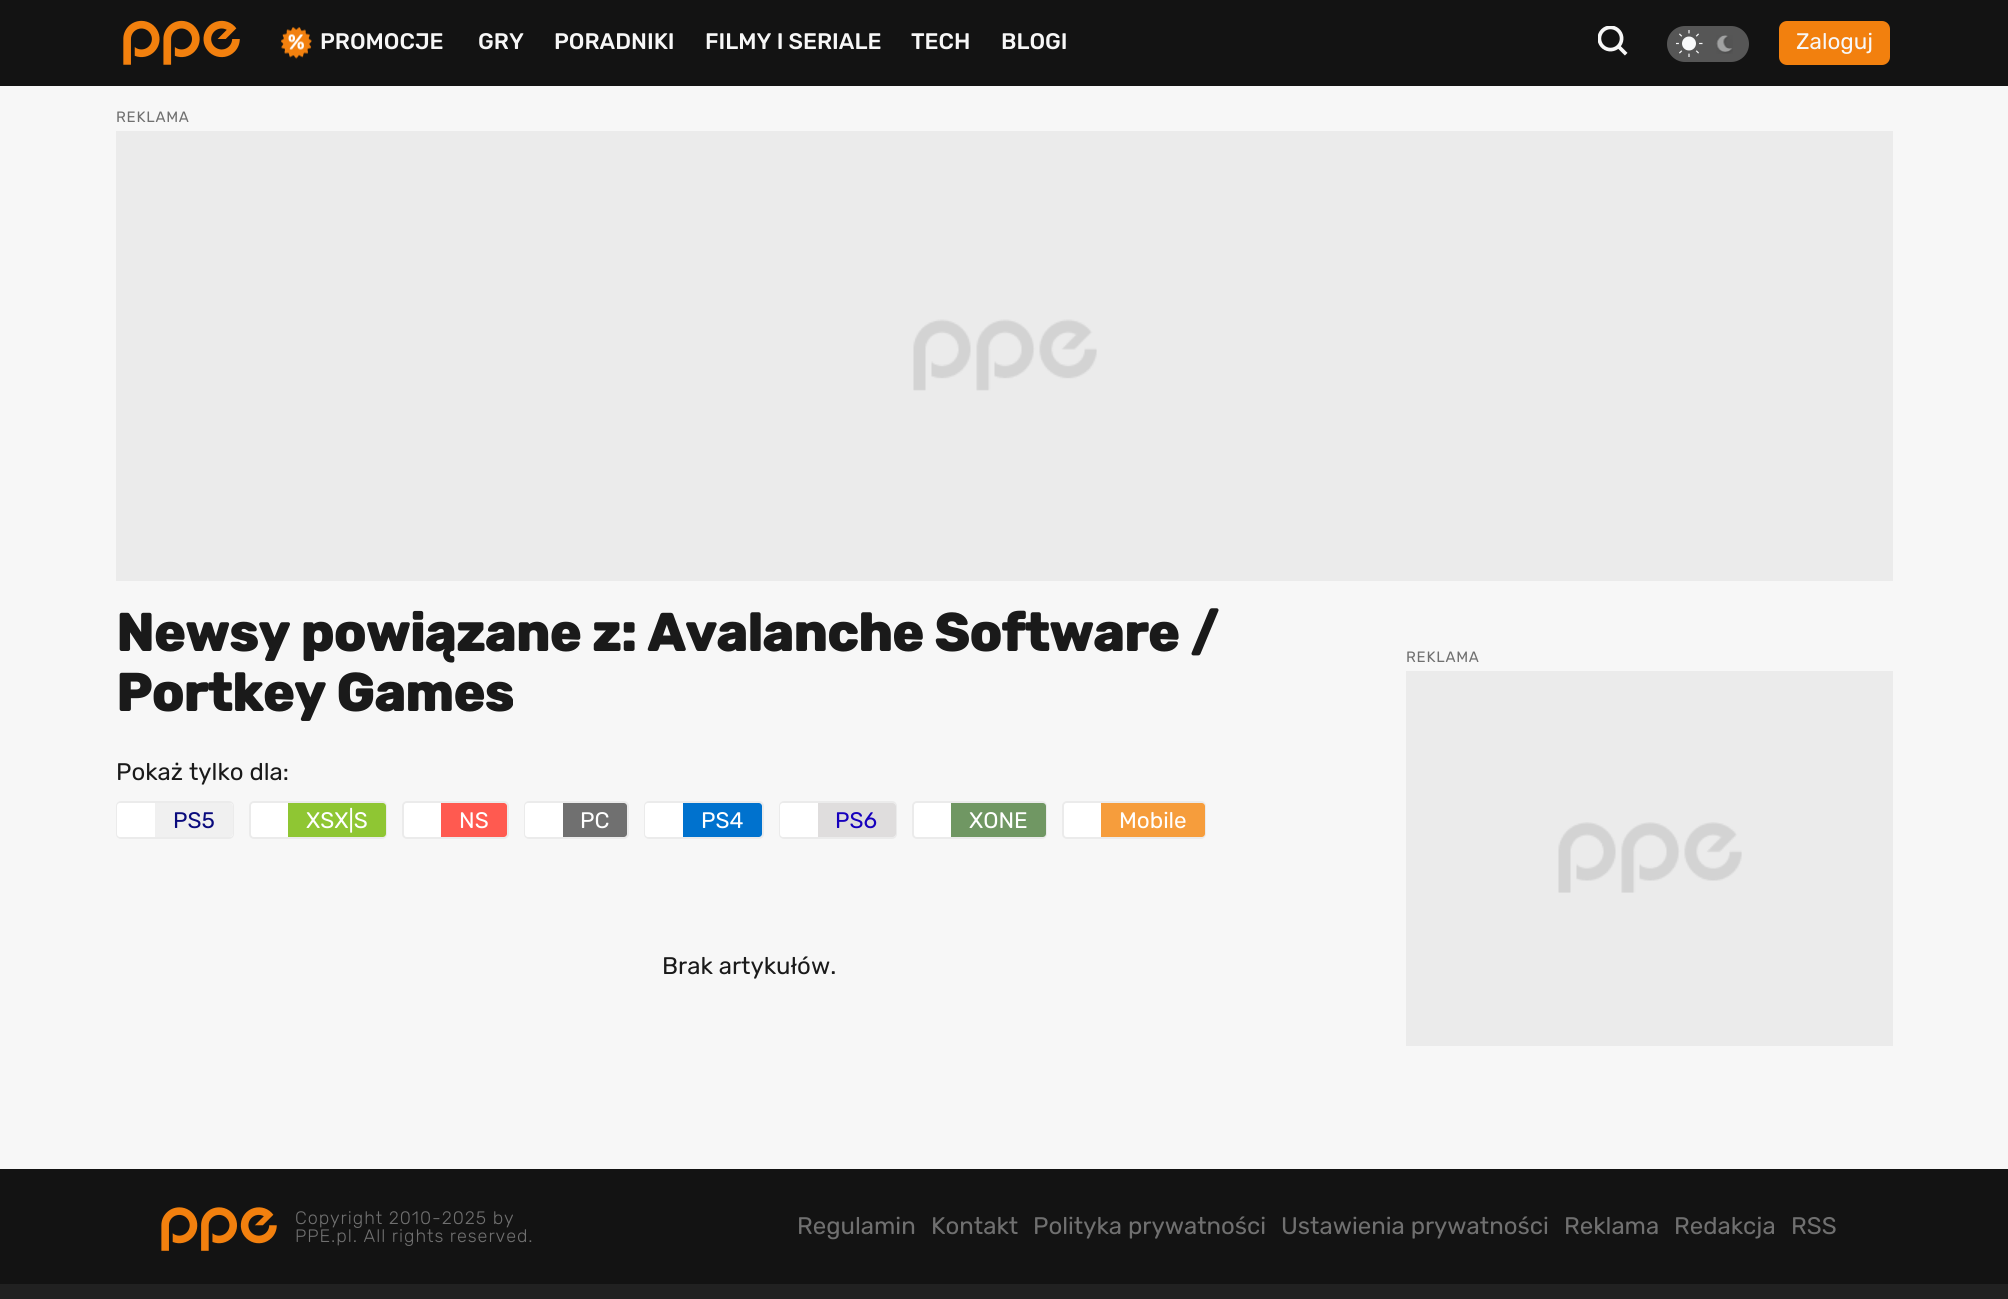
import math
import cairocffi as cairo

surface = cairo.ImageSurface(cairo.FORMAT_RGB24, 2008, 1299)
ctx = cairo.Context(surface)
options = cairo.FontOptions()
options.set_hint_metrics(cairo.HINT_METRICS_OFF)
options.set_hint_style(cairo.HINT_STYLE_NONE)
ctx.set_font_options(options)
ctx.set_miter_limit(4)


def rgb(r, g, b):
    ctx.set_source_rgb(r / 255, g / 255, b / 255)


def face(family, size, italic, bold):
    ctx.select_font_face(family, cairo.FONT_SLANT_ITALIC if italic else cairo.FONT_SLANT_NORMAL, cairo.FONT_WEIGHT_BOLD if bold else cairo.FONT_WEIGHT_NORMAL)
    ctx.set_font_size(size)


def label(x, y, s):
    ctx.move_to(x, y)
    ctx.show_text(s)


def tracked(x, y, s, letter, word):
    ctx.move_to(x, y)
    for ch in s:
        ctx.show_text(ch)
        ctx.rel_move_to(letter + word * (ch == ' '), 0)


def rect(x, y, w, h):
    ctx.rectangle(x, y, w, h)
    ctx.fill()


def rrect(x, y, w, h, r):
    ctx.new_sub_path()
    for i, (u, v) in enumerate([(x + w - r, y + h - r), (x + r, y + h - r), (x + r, y + r), (x + w - r, y + r)]):
        ctx.arc(u, v, r, i * math.pi / 2, (i + 1) * math.pi / 2)
    ctx.close_path()


def image(path, x, y, w, h):
    ctx.save()
    ctx.set_source_surface(cairo.ImageSurface.create_from_png(path), x, y)
    ctx.rectangle(x, y, w, h)
    ctx.fill()
    ctx.restore()


rgb(247, 247, 247)
ctx.paint()
rgb(19, 19, 19)
rect(0, 0, 2008, 86)
image('image0.png', 123, 20, 117, 45)
image('image1.png', 281, 27, 31, 32)
face('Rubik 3 Light', 22.5, 0, 0)
rgb(247, 247, 247)
label(320, 49, 'PROMOCJE')
label(478, 49, 'GRY')
label(554, 49, 'PORADNIKI')
label(705, 49, 'FILMY I SERIALE')
label(911, 49, 'TECH')
label(1001, 49, 'BLOGI')
image('image2.png', 1598, 26, 30, 30)
rgb(86, 86, 86)
rrect(1667, 26, 82, 36, 18)
ctx.fill()
image('image3.png', 1676, 30, 27, 27)
image('image4.png', 1716, 35, 17, 19)
rgb(242, 128, 14)
rrect(1779, 21, 111, 44, 8)
ctx.fill()
face('Rubik Light', 22.5, 0, 0)
rgb(247, 247, 247)
label(1796, 49, 'Zaloguj')
rgb(235, 235, 235)
rect(116, 131, 1777, 450)
image('image5.png', 913, 319, 184, 72)
face('Rubik Light', 15, 0, 0)
rgb(112, 112, 112)
tracked(116, 122, 'REKLAMA', 0.75, 0)
face('Rubik', 52.5, 0, 1)
rgb(26, 26, 26)
label(116, 651, 'Newsy powiązane z: Avalanche Software /')
label(116, 711, 'Portkey Games')
face('Rubik Light', 24, 0, 0)
label(116, 780, 'Pokaż tylko dla:')
rrect(117, 802, 116, 36, 4)
rgb(235, 235, 235)
ctx.stroke()
rgb(255, 255, 255)
rrect(117, 803, 116, 34, 3)
ctx.fill()
rgb(240, 240, 240)
ctx.new_path()
ctx.move_to(155, 803)
ctx.line_to(230, 803)
ctx.curve_to(231.5, 803, 233, 804.5, 233, 806)
ctx.line_to(233, 834)
ctx.curve_to(233, 835.5, 231.5, 837, 230, 837)
ctx.line_to(155, 837)
ctx.close_path()
ctx.fill()
face('Rubik Light', 22.5, 0, 0)
rgb(10, 11, 125)
label(173, 828, 'PS5')
rrect(250, 802, 136, 36, 4)
rgb(235, 235, 235)
ctx.stroke()
rgb(255, 255, 255)
rrect(251, 803, 135, 34, 3)
ctx.fill()
rgb(143, 198, 51)
ctx.new_path()
ctx.move_to(288, 803)
ctx.line_to(383, 803)
ctx.curve_to(384.5, 803, 386, 804.5, 386, 806)
ctx.line_to(386, 834)
ctx.curve_to(386, 835.5, 384.5, 837, 383, 837)
ctx.line_to(288, 837)
ctx.close_path()
ctx.fill()
rgb(255, 255, 255)
label(306, 828, 'XSX|S')
rrect(403, 802, 105, 36, 4)
rgb(235, 235, 235)
ctx.stroke()
rgb(255, 255, 255)
rrect(404, 803, 103, 34, 3)
ctx.fill()
rgb(255, 90, 80)
ctx.new_path()
ctx.move_to(441, 803)
ctx.line_to(504, 803)
ctx.curve_to(505.5, 803, 507, 804.5, 507, 806)
ctx.line_to(507, 834)
ctx.curve_to(507, 835.5, 505.5, 837, 504, 837)
ctx.line_to(441, 837)
ctx.close_path()
ctx.fill()
rgb(255, 255, 255)
label(459, 828, 'NS')
rrect(525, 802, 103, 36, 4)
rgb(235, 235, 235)
ctx.stroke()
rgb(255, 255, 255)
rrect(525, 803, 102, 34, 3)
ctx.fill()
rgb(112, 112, 112)
ctx.new_path()
ctx.move_to(563, 803)
ctx.line_to(624, 803)
ctx.curve_to(625.5, 803, 627, 804.5, 627, 806)
ctx.line_to(627, 834)
ctx.curve_to(627, 835.5, 625.5, 837, 624, 837)
ctx.line_to(563, 837)
ctx.close_path()
ctx.fill()
rgb(255, 255, 255)
label(580, 828, 'PC')
rrect(645, 802, 118, 36, 4)
rgb(235, 235, 235)
ctx.stroke()
rgb(255, 255, 255)
rrect(645, 803, 117, 34, 3)
ctx.fill()
rgb(0, 114, 206)
ctx.new_path()
ctx.move_to(683, 803)
ctx.line_to(759, 803)
ctx.curve_to(760.5, 803, 762, 804.5, 762, 806)
ctx.line_to(762, 834)
ctx.curve_to(762, 835.5, 760.5, 837, 759, 837)
ctx.line_to(683, 837)
ctx.close_path()
ctx.fill()
rgb(255, 255, 255)
label(701, 828, 'PS4')
rrect(780, 802, 116, 36, 4)
rgb(235, 235, 235)
ctx.stroke()
rgb(255, 255, 255)
rrect(780, 803, 116, 34, 3)
ctx.fill()
rgb(223, 221, 221)
ctx.new_path()
ctx.move_to(818, 803)
ctx.line_to(893, 803)
ctx.curve_to(894.5, 803, 896, 804.5, 896, 806)
ctx.line_to(896, 834)
ctx.curve_to(896, 835.5, 894.5, 837, 893, 837)
ctx.line_to(818, 837)
ctx.close_path()
ctx.fill()
rgb(22, 0, 189)
label(835, 828, 'PS6')
rrect(913, 802, 133, 36, 4)
rgb(235, 235, 235)
ctx.stroke()
rgb(255, 255, 255)
rrect(914, 803, 132, 34, 3)
ctx.fill()
rgb(112, 151, 99)
ctx.new_path()
ctx.move_to(951, 803)
ctx.line_to(1043, 803)
ctx.curve_to(1044.5, 803, 1046, 804.5, 1046, 806)
ctx.line_to(1046, 834)
ctx.curve_to(1046, 835.5, 1044.5, 837, 1043, 837)
ctx.line_to(951, 837)
ctx.close_path()
ctx.fill()
rgb(255, 255, 255)
label(969, 828, 'XONE')
rrect(1063, 802, 142, 36, 4)
rgb(235, 235, 235)
ctx.stroke()
rgb(255, 255, 255)
rrect(1064, 803, 141, 34, 3)
ctx.fill()
rgb(246, 157, 60)
ctx.new_path()
ctx.move_to(1101, 803)
ctx.line_to(1202, 803)
ctx.curve_to(1203.5, 803, 1205, 804.5, 1205, 806)
ctx.line_to(1205, 834)
ctx.curve_to(1205, 835.5, 1203.5, 837, 1202, 837)
ctx.line_to(1101, 837)
ctx.close_path()
ctx.fill()
rgb(255, 255, 255)
label(1119, 828, 'Mobile')
face('Rubik Light', 24, 0, 0)
rgb(26, 26, 26)
label(662, 974, 'Brak artykułów.')
rgb(235, 235, 235)
rect(1406, 671, 487, 375)
image('image6.png', 1558, 822, 184, 71)
face('Rubik Light', 15, 0, 0)
rgb(112, 112, 112)
tracked(1406, 662, 'REKLAMA', 0.75, 0)
rgb(33, 33, 33)
rect(0, 1284, 2008, 15)
rgb(19, 19, 19)
rect(0, 1169, 2008, 115)
image('image7.png', 161, 1207, 116, 44)
face('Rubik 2 Light', 18, 0, 0)
rgb(112, 112, 112)
tracked(295, 1224, 'Copyright 2010-2025 by', 0.95, 0)
tracked(295, 1242, 'PPE.pl. All rights reserved.', 0.95, 0)
face('Rubik Light', 24, 0, 0)
label(797, 1234, 'Regulamin')
label(931, 1234, 'Kontakt')
label(1033, 1234, 'Polityka prywatności')
label(1281, 1234, 'Ustawienia prywatności')
label(1564, 1234, 'Reklama')
label(1674, 1234, 'Redakcja')
label(1791, 1234, 'RSS')
surface.write_to_png('render.png')
